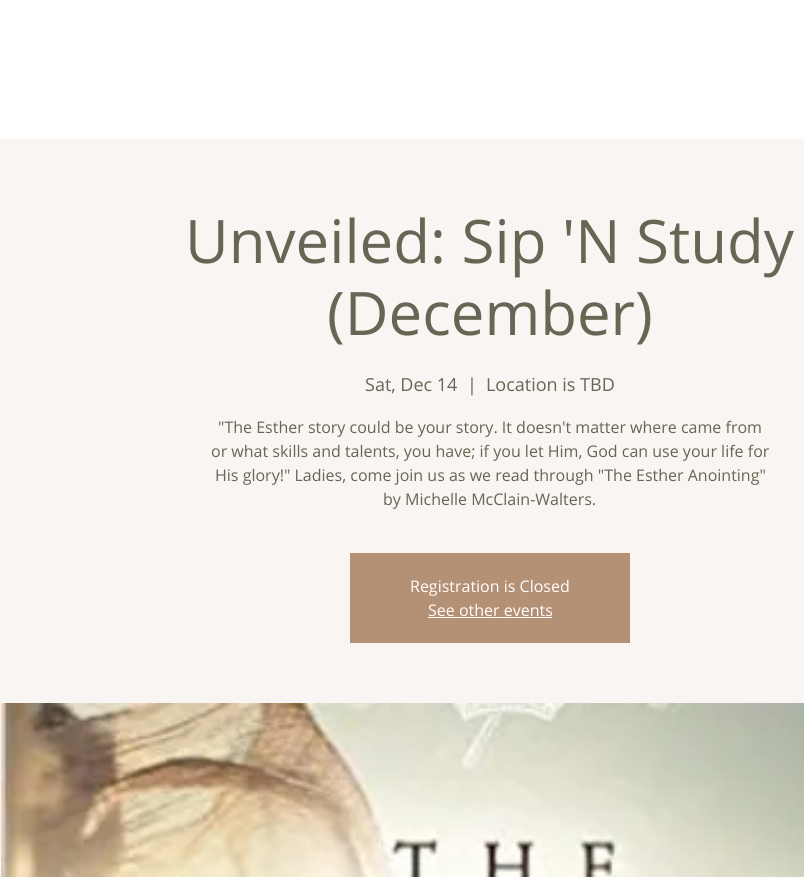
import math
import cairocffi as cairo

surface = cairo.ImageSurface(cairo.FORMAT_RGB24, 804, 877)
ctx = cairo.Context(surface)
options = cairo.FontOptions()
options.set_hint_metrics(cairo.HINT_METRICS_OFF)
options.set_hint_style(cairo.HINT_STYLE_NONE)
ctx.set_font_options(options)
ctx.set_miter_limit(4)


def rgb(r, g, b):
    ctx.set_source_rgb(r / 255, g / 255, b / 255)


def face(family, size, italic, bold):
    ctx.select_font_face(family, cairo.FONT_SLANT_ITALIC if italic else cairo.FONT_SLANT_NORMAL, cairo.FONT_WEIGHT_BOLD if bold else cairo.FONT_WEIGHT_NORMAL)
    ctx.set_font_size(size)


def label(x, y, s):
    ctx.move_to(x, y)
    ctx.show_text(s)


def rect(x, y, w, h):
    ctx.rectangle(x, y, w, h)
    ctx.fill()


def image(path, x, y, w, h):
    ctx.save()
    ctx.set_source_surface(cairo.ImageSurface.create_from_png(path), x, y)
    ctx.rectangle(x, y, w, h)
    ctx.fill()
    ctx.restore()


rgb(255, 255, 255)
ctx.paint()
rgb(248, 245, 242)
rect(0, 139, 804, 738)
face('Open Sans', 60, 0, 0)
rgb(105, 101, 84)
label(185, 263, 'Unveiled: Sip \'N Study')
label(327, 335, '(December)')
face('Open Sans', 18, 0, 0)
label(365, 391, 'Sat, Dec 14')
label(467, 391, '|')
label(486, 391, 'Location is TBD')
face('Open Sans', 16, 0, 0)
label(218, 433, '"The Esther story could be your story. It doesn\'t matter where came from')
label(211, 457, 'or what skills and talents, you have; if you let Him, God can use your life for')
label(215, 481, 'His glory!" Ladies, come join us as we read through "The Esther Anointing"')
label(383, 505, 'by Michelle McClain-Walters.')
rgb(180, 144, 116)
rect(350, 553, 280, 90)
rgb(255, 255, 255)
label(410, 592, 'Registration is Closed')
label(428, 616, 'See other events')
rect(428, 617, 124, 1)
image('image0.png', 1, 703, 803, 174)
surface.write_to_png('render.png')
